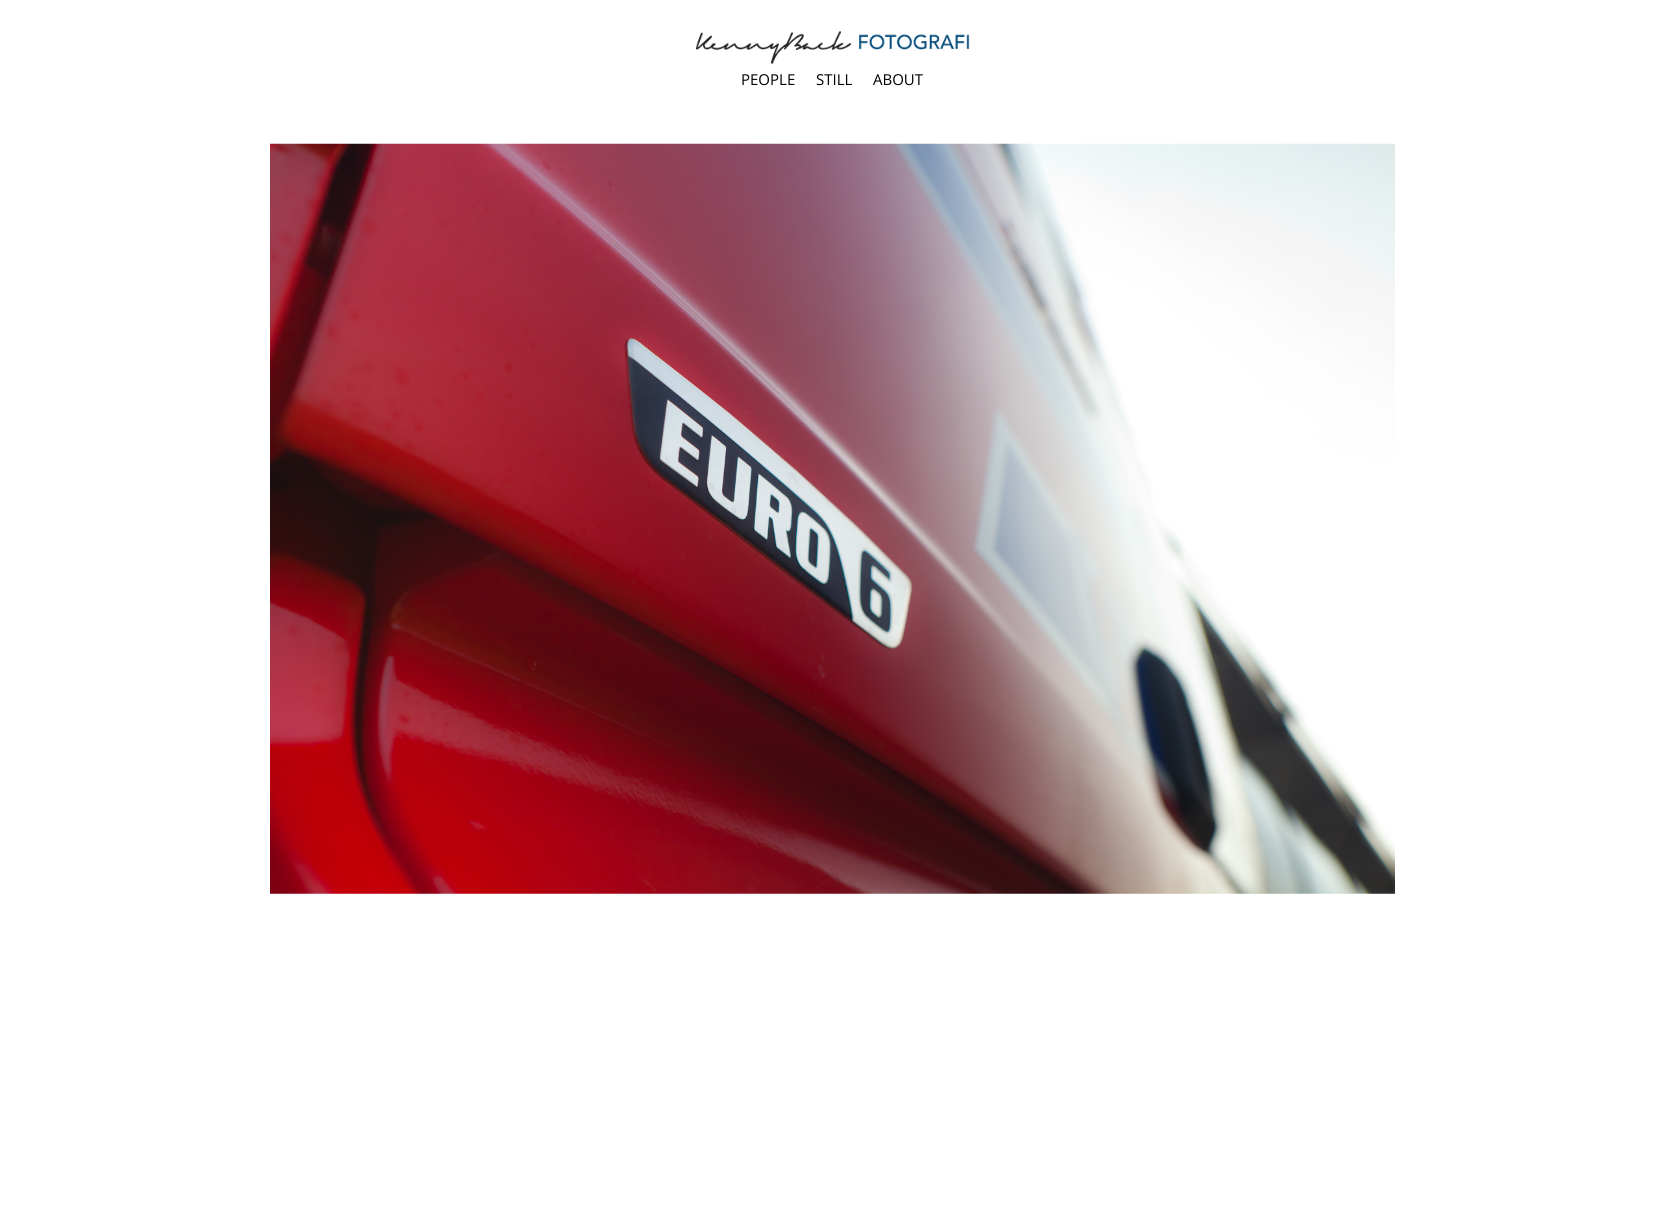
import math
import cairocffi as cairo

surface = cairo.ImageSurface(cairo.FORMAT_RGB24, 1663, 1218)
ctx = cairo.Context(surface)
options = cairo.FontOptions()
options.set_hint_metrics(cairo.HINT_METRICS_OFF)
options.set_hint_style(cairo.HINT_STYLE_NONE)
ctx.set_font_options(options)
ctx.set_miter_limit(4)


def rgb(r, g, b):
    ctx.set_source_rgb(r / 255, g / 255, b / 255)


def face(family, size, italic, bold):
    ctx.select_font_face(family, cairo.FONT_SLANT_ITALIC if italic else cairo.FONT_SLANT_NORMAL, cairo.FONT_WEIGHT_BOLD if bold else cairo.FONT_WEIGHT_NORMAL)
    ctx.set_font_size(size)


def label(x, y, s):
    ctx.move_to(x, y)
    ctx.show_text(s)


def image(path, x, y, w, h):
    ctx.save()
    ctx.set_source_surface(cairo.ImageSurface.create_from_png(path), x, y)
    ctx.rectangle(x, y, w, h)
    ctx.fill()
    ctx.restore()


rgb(255, 255, 255)
ctx.paint()
image('image0.png', 695, 31, 275, 33)
face('Open Sans', 15, 0, 0)
rgb(0, 0, 0)
label(741, 85, 'PEOPLE')
label(816, 85, 'STILL')
label(873, 85, 'ABOUT')
image('image1.png', 270, 143, 1125, 751)
surface.write_to_png('render.png')
